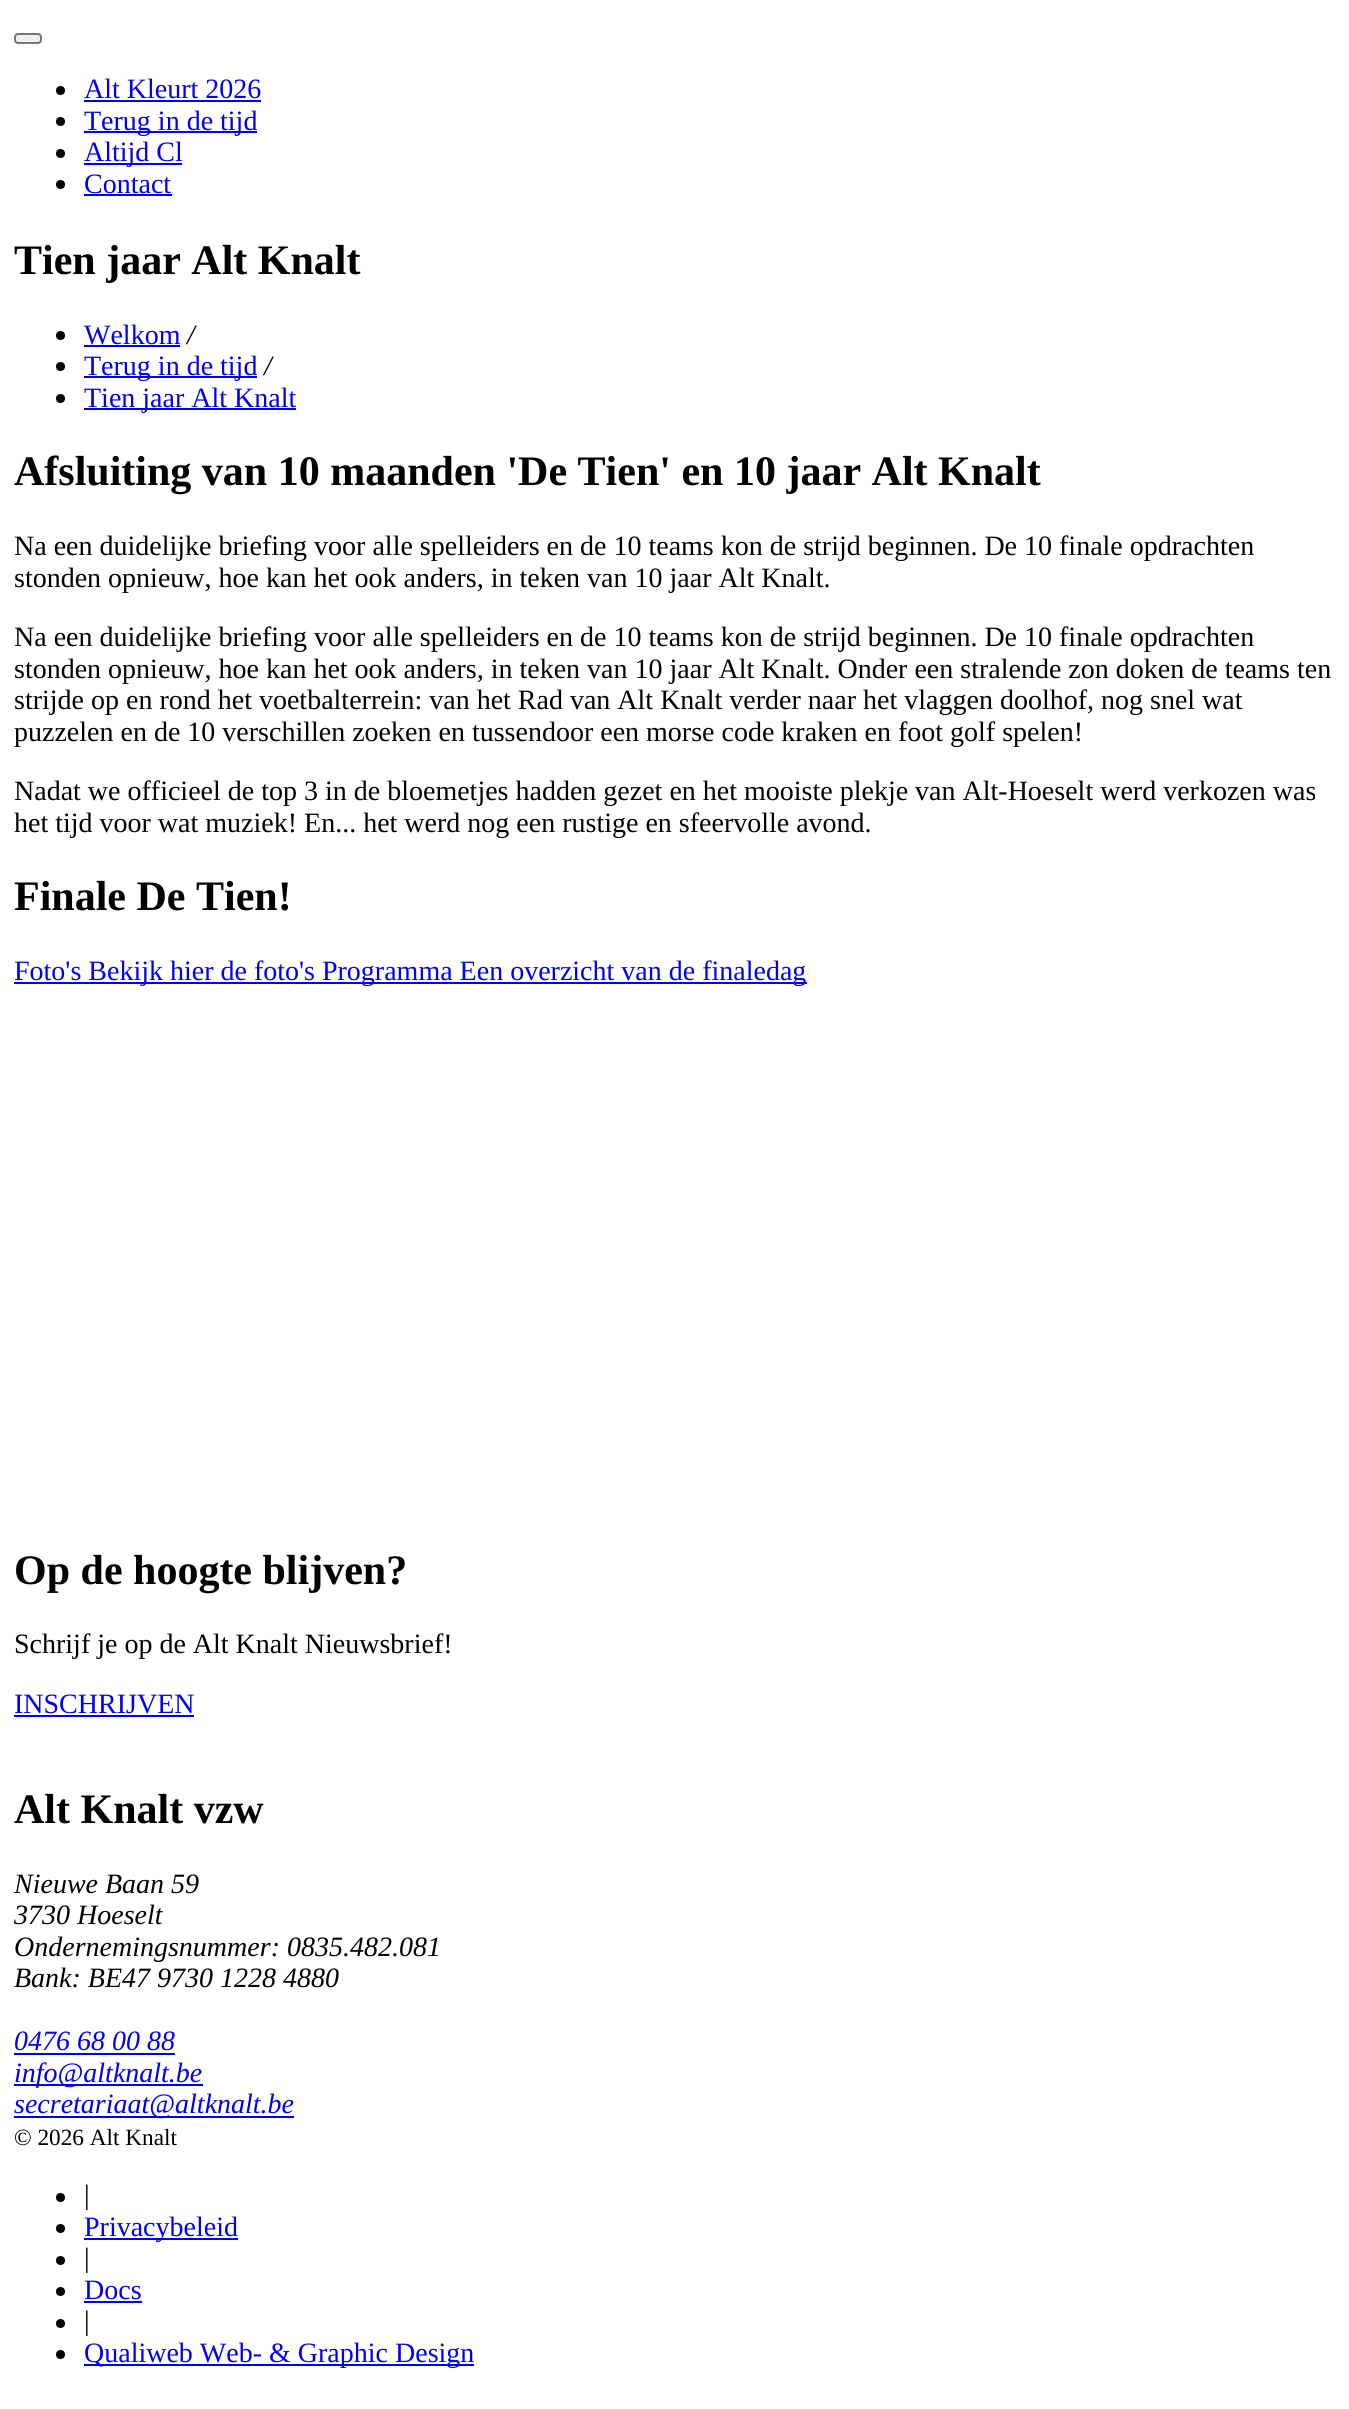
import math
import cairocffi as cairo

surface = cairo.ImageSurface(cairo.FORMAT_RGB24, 1349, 2409)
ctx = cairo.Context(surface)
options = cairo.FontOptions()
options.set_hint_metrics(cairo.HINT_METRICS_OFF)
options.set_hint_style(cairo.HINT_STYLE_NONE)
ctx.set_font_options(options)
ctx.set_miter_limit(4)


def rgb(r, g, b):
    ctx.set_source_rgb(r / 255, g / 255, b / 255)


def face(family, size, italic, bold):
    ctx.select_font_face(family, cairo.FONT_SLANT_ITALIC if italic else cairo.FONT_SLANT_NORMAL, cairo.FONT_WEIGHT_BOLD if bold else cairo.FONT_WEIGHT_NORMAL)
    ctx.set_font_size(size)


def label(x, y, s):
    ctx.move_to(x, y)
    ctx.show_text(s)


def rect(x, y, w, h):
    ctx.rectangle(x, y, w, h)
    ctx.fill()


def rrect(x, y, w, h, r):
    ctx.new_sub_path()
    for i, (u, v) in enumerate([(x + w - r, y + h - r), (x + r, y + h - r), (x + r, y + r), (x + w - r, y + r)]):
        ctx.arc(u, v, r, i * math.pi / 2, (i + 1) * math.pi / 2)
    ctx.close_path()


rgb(255, 255, 255)
ctx.paint()
rgb(239, 239, 239)
rrect(15, 34, 26, 9, 3)
ctx.fill_preserve()
rgb(118, 118, 118)
ctx.stroke()
rgb(0, 0, 0)
ctx.arc(60.5, 90.5, 4.5, 0, 2 * math.pi)
ctx.fill()
face('Liberation Serif', 28, 0, 0)
rgb(0, 0, 238)
label(84, 98, 'Alt Kleurt 2026')
rect(84, 100, 177, 2)
rgb(0, 0, 0)
ctx.new_path()
ctx.arc(60.5, 121.5, 4.5, 0, 2 * math.pi)
ctx.fill()
rgb(0, 0, 238)
rect(84, 131, 173, 2)
label(84, 130, 'Terug in de tijd')
rgb(0, 0, 0)
ctx.new_path()
ctx.arc(60.5, 153.5, 4.5, 0, 2 * math.pi)
ctx.fill()
rgb(0, 0, 238)
rect(84, 163, 98, 2)
label(84, 161, 'Altijd Cl')
rgb(0, 0, 0)
ctx.new_path()
ctx.arc(60.5, 184.5, 4.5, 0, 2 * math.pi)
ctx.fill()
rgb(0, 0, 238)
label(84, 193, 'Contact')
rect(84, 194, 88, 2)
face('Liberation Serif', 42, 0, 1)
rgb(0, 0, 0)
label(14, 274, 'Tien jaar Alt Knalt')
ctx.new_path()
ctx.arc(60.5, 335.5, 4.5, 0, 2 * math.pi)
ctx.fill()
face('Liberation Serif', 28, 0, 0)
rgb(0, 0, 238)
label(84, 344, 'Welkom')
rect(84, 345, 96, 2)
face('Liberation Serif', 28, 1, 0)
rgb(0, 0, 0)
label(187, 344, '/')
ctx.new_path()
ctx.arc(60.5, 366.5, 4.5, 0, 2 * math.pi)
ctx.fill()
rgb(0, 0, 238)
rect(84, 376, 173, 2)
face('Liberation Serif', 28, 0, 0)
label(84, 375, 'Terug in de tijd')
face('Liberation Serif', 28, 1, 0)
rgb(0, 0, 0)
label(264, 375, '/')
ctx.new_path()
ctx.arc(60.5, 398.5, 4.5, 0, 2 * math.pi)
ctx.fill()
rgb(0, 0, 238)
rect(84, 408, 212, 2)
face('Liberation Serif', 28, 0, 0)
label(84, 407, 'Tien jaar Alt Knalt')
face('Liberation Serif', 42, 0, 1)
rgb(0, 0, 0)
label(14, 485, 'Afsluiting van 10 maanden \'De Tien\' en 10 jaar Alt Knalt')
face('Liberation Serif', 28, 0, 0)
label(14, 555, 'Na een duidelijke briefing voor alle spelleiders en de 10 teams kon de strijd beginnen. De 10 finale opdrachten')
label(14, 587, 'stonden opnieuw, hoe kan het ook anders, in teken van 10 jaar Alt Knalt.')
label(14, 646, 'Na een duidelijke briefing voor alle spelleiders en de 10 teams kon de strijd beginnen. De 10 finale opdrachten')
label(14, 678, 'stonden opnieuw, hoe kan het ook anders, in teken van 10 jaar Alt Knalt. Onder een stralende zon doken de teams ten')
label(14, 709, 'strijde op en rond het voetbalterrein: van het Rad van Alt Knalt verder naar het vlaggen doolhof, nog snel wat')
label(14, 741, 'puzzelen en de 10 verschillen zoeken en tussendoor een morse code kraken en foot golf spelen!')
label(14, 800, 'Nadat we officieel de top 3 in de bloemetjes hadden gezet en het mooiste plekje van Alt-Hoeselt werd verkozen was')
label(14, 832, 'het tijd voor wat muziek! En... het werd nog een rustige en sfeervolle avond.')
face('Liberation Serif', 42, 0, 1)
label(14, 910, 'Finale De Tien!')
rgb(0, 0, 238)
rect(14, 982, 793, 2)
face('Liberation Serif', 28, 0, 0)
label(14, 980, 'Foto\'s Bekijk hier de foto\'s Programma Een overzicht van de finaledag')
face('Liberation Serif', 42, 0, 1)
rgb(0, 0, 0)
label(14, 1584, 'Op de hoogte blijven?')
face('Liberation Serif', 28, 0, 0)
label(14, 1653, 'Schrijf je op de Alt Knalt Nieuwsbrief!')
rgb(0, 0, 238)
label(14, 1713, 'INSCHRIJVEN')
rect(14, 1715, 180, 2)
face('Liberation Serif', 42, 0, 1)
rgb(0, 0, 0)
label(14, 1823, 'Alt Knalt vzw')
face('Liberation Serif', 28, 1, 0)
label(14, 1893, 'Nieuwe Baan 59')
label(14, 1924, '3730 Hoeselt')
label(14, 1956, 'Ondernemingsnummer: 0835.482.081')
label(14, 1987, 'Bank: BE47 9730 1228 4880')
rgb(0, 0, 238)
label(14, 2050, '0476 68 00 88')
rect(14, 2053, 161, 2)
rect(14, 2084, 189, 2)
label(14, 2082, 'info@altknalt.be')
rect(14, 2116, 280, 2)
label(14, 2113, 'secretariaat@altknalt.be')
face('Liberation Serif', 23.25, 0, 0)
rgb(0, 0, 0)
label(14, 2145, '© 2026 Alt Knalt')
ctx.new_path()
ctx.arc(60.5, 2197.5, 4.5, 0, 2 * math.pi)
ctx.fill()
face('Liberation Serif', 28, 0, 0)
label(84, 2204, '|')
ctx.new_path()
ctx.arc(60.5, 2228.5, 4.5, 0, 2 * math.pi)
ctx.fill()
rgb(0, 0, 238)
rect(84, 2238, 154, 2)
label(84, 2236, 'Privacybeleid')
rgb(0, 0, 0)
ctx.new_path()
ctx.arc(60.5, 2260.5, 4.5, 0, 2 * math.pi)
ctx.fill()
label(84, 2267, '|')
ctx.new_path()
ctx.arc(60.5, 2291.5, 4.5, 0, 2 * math.pi)
ctx.fill()
rgb(0, 0, 238)
label(84, 2299, 'Docs')
rect(84, 2301, 58, 2)
rgb(0, 0, 0)
ctx.new_path()
ctx.arc(60.5, 2323.5, 4.5, 0, 2 * math.pi)
ctx.fill()
label(84, 2330, '|')
ctx.new_path()
ctx.arc(60.5, 2354.5, 4.5, 0, 2 * math.pi)
ctx.fill()
rgb(0, 0, 238)
rect(84, 2364, 390, 2)
label(84, 2362, 'Qualiweb Web- & Graphic Design')
surface.write_to_png('render.png')
